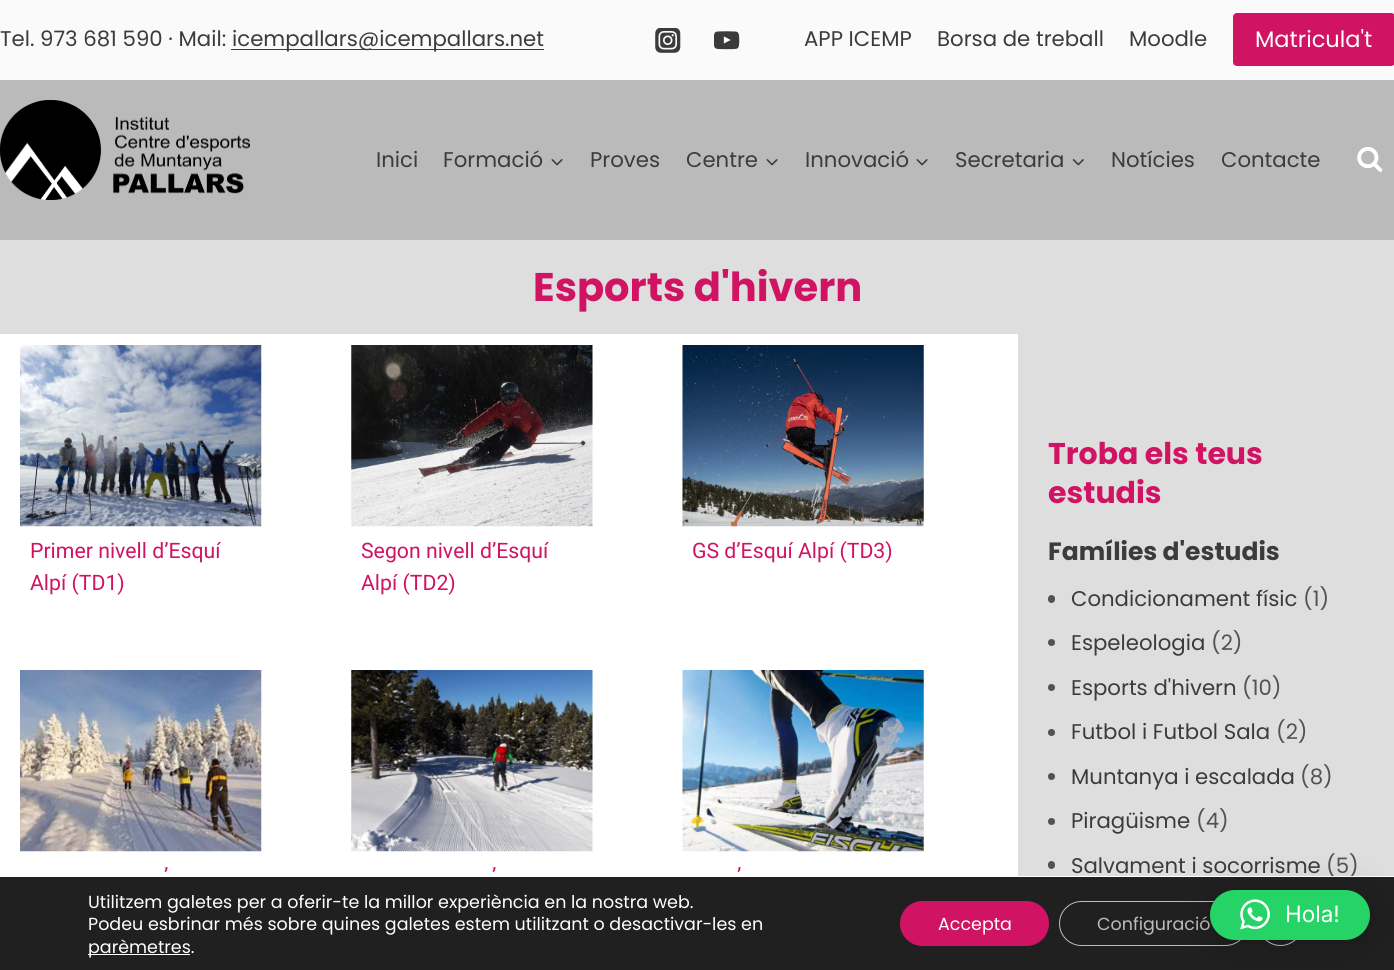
import math
import cairocffi as cairo

surface = cairo.ImageSurface(cairo.FORMAT_RGB24, 1394, 970)
ctx = cairo.Context(surface)
options = cairo.FontOptions()
options.set_hint_metrics(cairo.HINT_METRICS_OFF)
options.set_hint_style(cairo.HINT_STYLE_NONE)
ctx.set_font_options(options)
ctx.set_miter_limit(4)


def rgb(r, g, b):
    ctx.set_source_rgb(r / 255, g / 255, b / 255)


def face(family, size, italic, bold):
    ctx.select_font_face(family, cairo.FONT_SLANT_ITALIC if italic else cairo.FONT_SLANT_NORMAL, cairo.FONT_WEIGHT_BOLD if bold else cairo.FONT_WEIGHT_NORMAL)
    ctx.set_font_size(size)


def label(x, y, s):
    ctx.move_to(x, y)
    ctx.show_text(s)


def rect(x, y, w, h):
    ctx.rectangle(x, y, w, h)
    ctx.fill()


def rrect(x, y, w, h, r):
    ctx.new_sub_path()
    for i, (u, v) in enumerate([(x + w - r, y + h - r), (x + r, y + h - r), (x + r, y + r), (x + w - r, y + r)]):
        ctx.arc(u, v, r, i * math.pi / 2, (i + 1) * math.pi / 2)
    ctx.close_path()


def soft_shadow(x, y, w, h, r, blur, alpha):
    ctx.push_group_with_content(cairo.CONTENT_ALPHA)
    ctx.set_operator(cairo.OPERATOR_SOURCE)
    for i in range(15, -16, -2):
        e = blur * i / 6
        if min(w, h) + 2 * e > 0:
            ctx.set_source_rgba(0, 0, 0, alpha * math.erfc((i - 1) / 8.5) / 2)
            rrect(x - e, y - e, w + 2 * e, h + 2 * e, max(0, min(r + e + blur * .6, min(w, h) / 2 + e)))
            ctx.fill()
    ctx.mask(ctx.pop_group())


def image(path, x, y, w, h):
    ctx.save()
    ctx.set_source_surface(cairo.ImageSurface.create_from_png(path), x, y)
    ctx.rectangle(x, y, w, h)
    ctx.fill()
    ctx.restore()


rgb(255, 255, 255)
ctx.paint()
rgb(250, 250, 250)
rect(0, 0, 1394, 80)
face('Poppins', 21.25, 0, 0)
rgb(59, 59, 59)
label(0, 46, 'Tel. 973 681 590 · Mail:')
rect(231, 49, 313, 1)
label(232, 46, 'icempallars@icempallars.net')
image('image0.png', 655, 28, 26, 25)
image('image1.png', 714, 31, 26, 19)
label(804, 46, 'APP ICEMP')
label(937, 46, 'Borsa de treball')
label(1129, 46, 'Moodle')
rgb(209, 19, 99)
rrect(1233, 13, 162, 53, 4)
ctx.fill()
face('Poppins', 22.5, 0, 0)
rgb(255, 255, 255)
label(1255, 47, 'Matricula\'t')
rgb(186, 186, 186)
rect(0, 80, 1394, 160)
image('image2.png', 0, 100, 250, 100)
face('Poppins', 21.25, 0, 0)
rgb(59, 59, 59)
label(376, 167, 'Inici')
label(443, 167, 'Formació')
image('image3.png', 551, 159, 12, 7)
label(590, 167, 'Proves')
label(686, 167, 'Centre')
image('image3.png', 766, 159, 12, 7)
label(805, 167, 'Innovació')
image('image3.png', 916, 159, 12, 7)
label(955, 167, 'Secretaria')
image('image4.png', 1072, 159, 12, 7)
label(1111, 167, 'Notícies')
label(1221, 167, 'Contacte')
image('image5.png', 1357, 147, 26, 25)
rgb(222, 222, 222)
rect(0, 240, 1394, 94)
face('Poppins', 40, 0, 1)
rgb(209, 19, 99)
label(533, 301, 'Esports d\'hivern')
image('image6.png', 20, 345, 242, 182)
face('Roboto', 21.25, 0, 0)
label(30, 558, 'Primer nivell d’Esquí')
label(30, 590, 'Alpí (TD1)')
image('image7.png', 351, 345, 242, 182)
label(361, 558, 'Segon nivell d’Esquí')
label(361, 590, 'Alpí (TD2)')
image('image8.png', 682, 345, 242, 182)
label(692, 558, 'GS d’Esquí Alpí (TD3)')
image('image9.png', 20, 670, 242, 182)
label(164, 883, '’')
image('image10.png', 351, 670, 242, 182)
label(492, 883, '’')
image('image11.png', 682, 670, 242, 182)
label(737, 883, '’')
rgb(222, 222, 222)
rect(1018, 334, 376, 542)
face('Poppins', 30, 0, 1)
rgb(209, 19, 99)
label(1048, 464, 'Troba els teus')
label(1048, 503, 'estudis')
face('Poppins', 25, 0, 1)
rgb(59, 59, 59)
label(1048, 560, 'Famílies d\'estudis')
rgb(82, 82, 82)
rrect(1048, 595, 7, 8, 3.5)
ctx.fill()
face('Poppins', 21.25, 0, 0)
rgb(59, 59, 59)
label(1071, 606, 'Condicionament físic')
rgb(82, 82, 82)
label(1303, 606, '(1)')
ctx.new_path()
ctx.arc(1051.5, 642.5, 3.5, 0, 2 * math.pi)
ctx.fill()
rgb(59, 59, 59)
label(1071, 650, 'Espeleologia')
rgb(82, 82, 82)
label(1211, 650, '(2)')
ctx.new_path()
ctx.arc(1051.5, 687.5, 3.5, 0, 2 * math.pi)
ctx.fill()
rgb(59, 59, 59)
label(1071, 695, 'Esports d\'hivern')
rgb(82, 82, 82)
label(1242, 695, '(10)')
ctx.new_path()
ctx.arc(1051.5, 732.5, 3.5, 0, 2 * math.pi)
ctx.fill()
rgb(59, 59, 59)
label(1071, 739, 'Futbol i Futbol Sala')
rgb(82, 82, 82)
label(1276, 739, '(2)')
ctx.new_path()
ctx.arc(1051.5, 776.5, 3.5, 0, 2 * math.pi)
ctx.fill()
rgb(59, 59, 59)
label(1071, 784, 'Muntanya i escalada')
rgb(82, 82, 82)
label(1300, 784, '(8)')
ctx.new_path()
ctx.arc(1051.5, 821.5, 3.5, 0, 2 * math.pi)
ctx.fill()
rgb(59, 59, 59)
label(1071, 828, 'Piragüisme')
rgb(82, 82, 82)
label(1196, 828, '(4)')
rrect(1048, 861, 7, 8, 3.5)
ctx.fill()
rgb(59, 59, 59)
label(1071, 873, 'Salvament i socorrisme')
rgb(82, 82, 82)
label(1326, 873, '(5)')
rgb(32, 32, 32)
rect(0, 877, 1394, 93)
rgb(255, 255, 255)
rect(1332, 876, 21, 1)
face('Poppins', 17.5, 0, 0)
label(88, 908, 'Utilitzem galetes per a oferir-te la millor experiència en la nostra web.')
label(88, 930, 'Podeu esbrinar més sobre quines galetes estem utilitzant o desactivar-les en')
rect(88, 954, 102, 1)
label(88, 953, 'parèmetres.')
rgb(209, 19, 99)
rrect(900, 901, 149, 45, 22.5)
ctx.fill()
rgb(255, 255, 255)
label(938, 930, 'Accepta')
rrect(1059.5, 901.5, 188, 44, 22)
rgb(188, 188, 188)
ctx.set_line_width(1)
ctx.stroke()
label(1097, 930, 'Configuració')
ctx.new_path()
ctx.arc(1280.5, 923.5, 22, 0, 2 * math.pi)
ctx.stroke()
rgb(0, 0, 0)
soft_shadow(1210, 893, 160, 50, 25, 20, 0.16)
soft_shadow(1210, 891, 160, 50, 25, 4, 0.06)
rgb(37, 211, 102)
rrect(1210, 890, 160, 50, 25)
ctx.fill()
image('image12.png', 1240, 899, 30, 31)
face('Inter', 22.5, 0, 0)
rgb(255, 255, 255)
label(1285, 922, 'Hola!')
surface.write_to_png('render.png')
